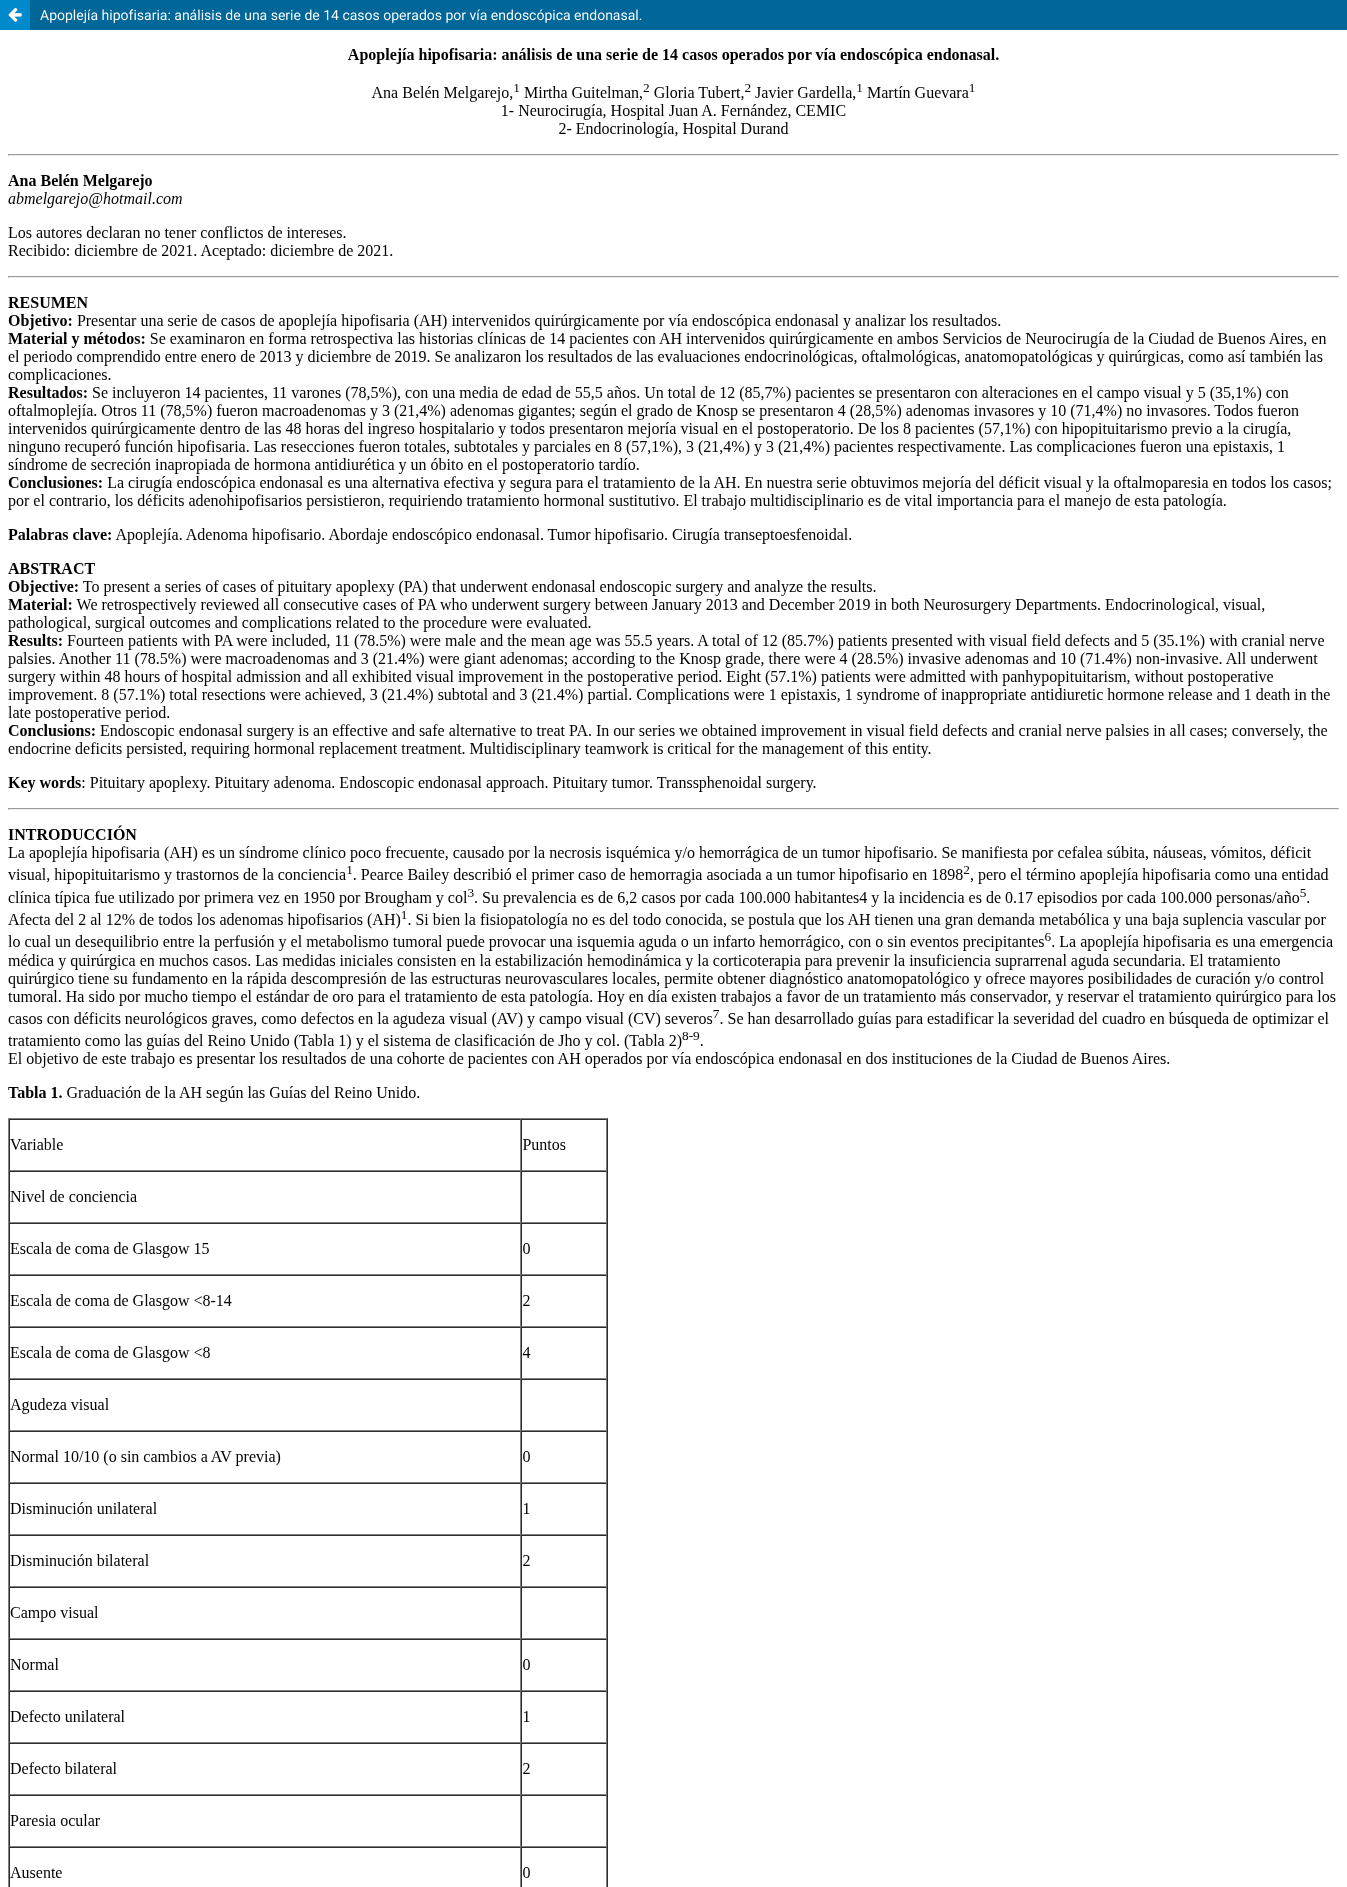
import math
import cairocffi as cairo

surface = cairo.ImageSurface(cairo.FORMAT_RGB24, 1347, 1887)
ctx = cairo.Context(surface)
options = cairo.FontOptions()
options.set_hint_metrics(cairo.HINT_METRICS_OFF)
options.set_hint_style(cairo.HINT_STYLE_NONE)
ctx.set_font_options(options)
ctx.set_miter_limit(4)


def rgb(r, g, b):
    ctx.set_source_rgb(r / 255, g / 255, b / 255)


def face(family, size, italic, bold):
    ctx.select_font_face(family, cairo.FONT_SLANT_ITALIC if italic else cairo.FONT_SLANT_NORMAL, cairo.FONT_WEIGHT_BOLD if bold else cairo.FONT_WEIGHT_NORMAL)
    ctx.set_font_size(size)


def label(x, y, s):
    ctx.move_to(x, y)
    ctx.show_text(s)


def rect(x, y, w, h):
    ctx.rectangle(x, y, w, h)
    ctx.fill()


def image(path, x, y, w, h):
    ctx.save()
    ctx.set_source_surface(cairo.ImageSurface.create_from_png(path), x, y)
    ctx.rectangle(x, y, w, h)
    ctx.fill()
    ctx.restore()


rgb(255, 255, 255)
ctx.paint()
rgb(0, 103, 152)
rect(30, 0, 1317, 30)
rgb(0, 138, 203)
rect(0, 0, 30, 30)
image('image0.png', 8, 7, 14, 15)
face('Roboto', 14, 0, 0)
rgb(255, 255, 255)
label(40, 20, 'Apoplejía hipofisaria: análisis de una serie de 14 casos operados por vía endoscópica endonasal.')
image('image1.png', 8, 48, 1331, 1839)
surface.write_to_png('render.png')
